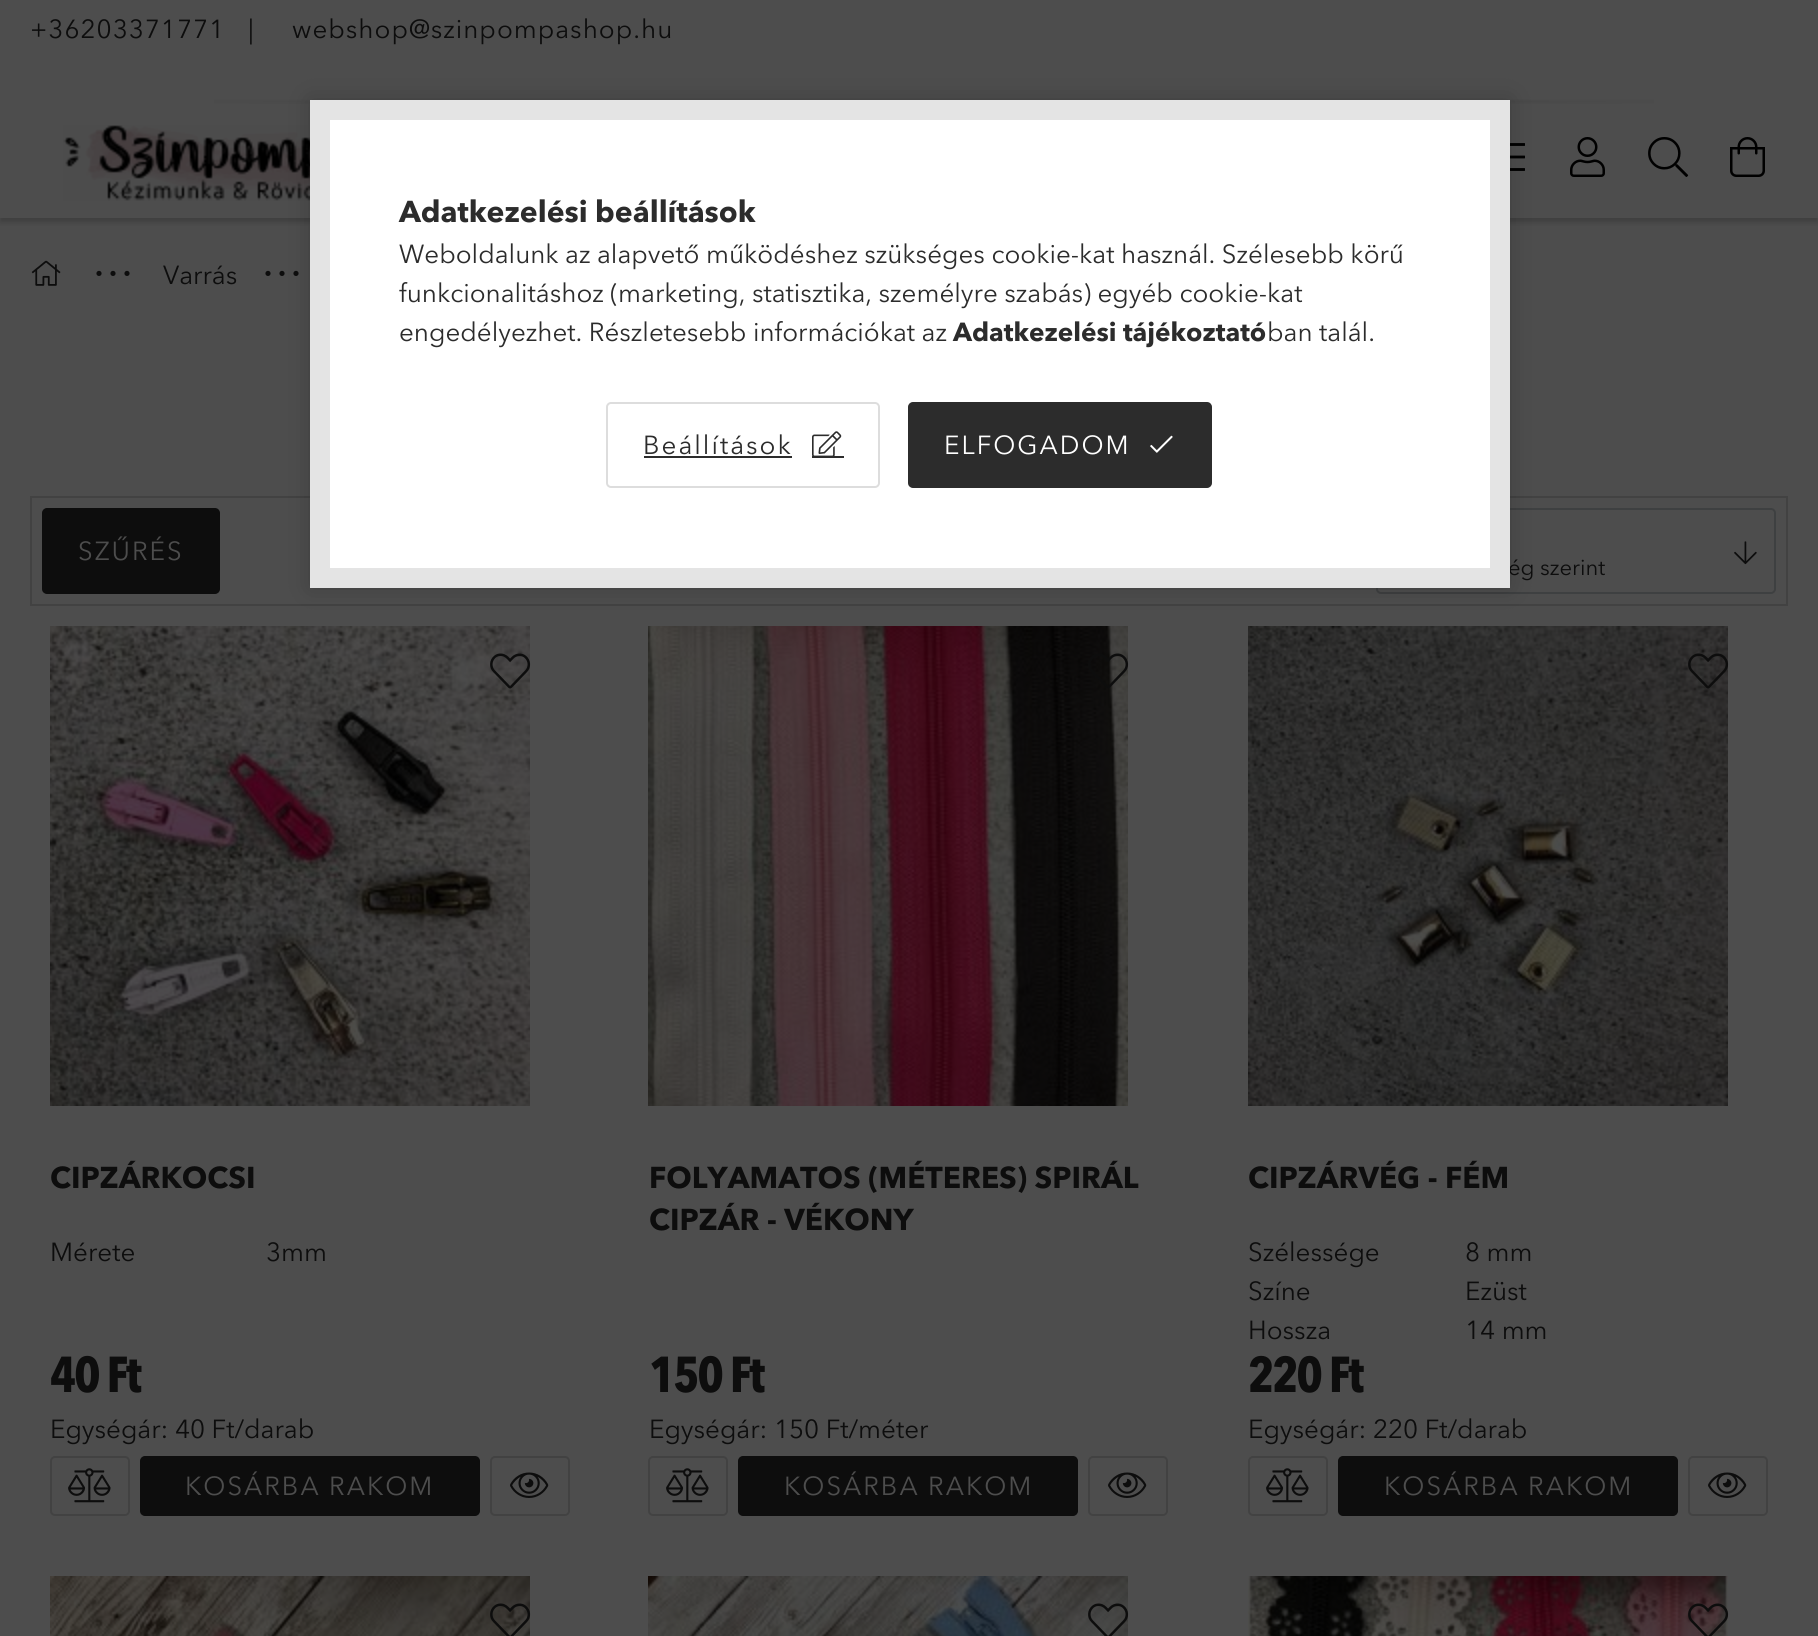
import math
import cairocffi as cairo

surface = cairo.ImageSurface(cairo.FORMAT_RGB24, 1818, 1636)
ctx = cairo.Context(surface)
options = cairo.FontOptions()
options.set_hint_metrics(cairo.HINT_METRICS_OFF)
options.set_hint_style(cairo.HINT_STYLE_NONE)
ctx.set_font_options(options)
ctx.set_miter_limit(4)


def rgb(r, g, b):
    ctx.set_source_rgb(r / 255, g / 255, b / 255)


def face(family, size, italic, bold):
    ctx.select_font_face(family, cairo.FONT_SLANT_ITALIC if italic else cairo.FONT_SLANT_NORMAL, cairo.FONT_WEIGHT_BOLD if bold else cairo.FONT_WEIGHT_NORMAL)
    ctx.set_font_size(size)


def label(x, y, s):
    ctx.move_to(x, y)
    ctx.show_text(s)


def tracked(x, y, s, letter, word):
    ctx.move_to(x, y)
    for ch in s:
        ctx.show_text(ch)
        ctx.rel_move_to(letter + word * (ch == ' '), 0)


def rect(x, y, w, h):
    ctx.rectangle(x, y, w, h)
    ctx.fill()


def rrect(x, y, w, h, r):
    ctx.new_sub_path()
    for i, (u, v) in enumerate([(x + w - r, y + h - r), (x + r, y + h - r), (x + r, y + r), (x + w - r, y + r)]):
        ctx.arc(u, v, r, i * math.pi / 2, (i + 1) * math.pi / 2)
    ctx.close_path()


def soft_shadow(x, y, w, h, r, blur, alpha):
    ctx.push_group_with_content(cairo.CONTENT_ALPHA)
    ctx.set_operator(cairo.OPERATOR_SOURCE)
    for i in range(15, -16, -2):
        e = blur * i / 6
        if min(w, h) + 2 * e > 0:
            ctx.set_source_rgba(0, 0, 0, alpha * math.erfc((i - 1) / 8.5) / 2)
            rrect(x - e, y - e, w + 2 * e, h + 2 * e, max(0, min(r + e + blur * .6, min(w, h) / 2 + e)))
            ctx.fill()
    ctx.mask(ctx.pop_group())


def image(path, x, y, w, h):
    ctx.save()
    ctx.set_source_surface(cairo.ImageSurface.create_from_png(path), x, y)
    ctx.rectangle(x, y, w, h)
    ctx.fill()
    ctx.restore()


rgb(77, 77, 77)
ctx.paint()
ctx.save()
ctx.rectangle(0, 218, 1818, 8)
ctx.clip()
rgb(0, 0, 0)
soft_shadow(0, 4, 1818, 218, 0, 3, 0.2)
ctx.restore()
face('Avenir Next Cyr', 26, 0, 0)
rgb(13, 13, 13)
tracked(30, 38, '+36203371771', 1, 0)
tracked(248, 38, '|', 1, 0)
tracked(292, 38, 'webshop@szinpompashop.hu', 1, 0)
image('image0.png', 214, 99, 1440, 5)
image('image1.png', 63, 125, 247, 76)
image('image2.png', 1510, 143, 15, 28)
image('image3.png', 1570, 137, 35, 40)
image('image4.png', 1648, 137, 41, 40)
image('image5.png', 1730, 137, 35, 40)
image('image6.png', 31, 260, 30, 26)
face('Liberation Serif', 32, 0, 1)
tracked(95, 284, '∙∙∙', 6, 0)
face('Avenir Next Cyr', 26, 0, 0)
label(163, 284, 'Varrás')
face('Liberation Serif', 32, 0, 1)
tracked(264, 284, '∙∙∙', 6, 0)
ctx.rectangle(31, 497, 1756, 108)
rgb(66, 66, 66)
ctx.stroke()
rgb(13, 13, 13)
rrect(43, 509, 176, 84, 4)
ctx.fill_preserve()
ctx.stroke()
face('Avenir Next Cyr', 26, 0, 0)
rgb(77, 77, 77)
tracked(78, 560, 'SZŰRÉS', 2, 0)
rrect(1377, 509, 398, 84, 4)
rgb(62, 64, 65)
ctx.stroke()
image('image7.png', 1734, 541, 23, 24)
face('Avenir Next Cyr', 22, 0, 0)
rgb(13, 13, 13)
label(1508, 575, 'ég szerint')
image('image8.png', 50, 626, 480, 480)
image('image9.png', 490, 653, 41, 36)
face('Avenir Next Cyr', 30, 0, 1)
label(50, 1188, 'CIPZÁRKOCSI')
face('Avenir Next Cyr', 26, 0, 0)
label(50, 1261, 'Mérete')
label(266, 1261, '3mm')
face('Avenir Next', 50, 0, 1)
tracked(50, 1392, '40 Ft', -2, 0)
face('Avenir Next Cyr', 26, 0, 0)
label(50, 1438, 'Egységár: 40 Ft/darab')
rrect(51, 1457, 78, 58, 4)
rgb(66, 66, 66)
ctx.stroke()
image('image10.png', 68, 1468, 43, 35)
rgb(13, 13, 13)
rrect(141, 1457, 338, 58, 4)
ctx.fill_preserve()
ctx.stroke()
rgb(77, 77, 77)
tracked(185, 1495, 'KOSÁRBA RAKOM', 2, 0)
rrect(491, 1457, 78, 58, 4)
rgb(66, 66, 66)
ctx.stroke()
image('image11.png', 510, 1472, 39, 26)
image('image12.png', 648, 626, 480, 480)
image('image13.png', 1088, 653, 41, 35)
face('Avenir Next Cyr', 30, 0, 1)
rgb(13, 13, 13)
label(649, 1188, 'FOLYAMATOS (MÉTERES) SPIRÁL')
label(649, 1230, 'CIPZÁR - VÉKONY')
face('Avenir Next', 50, 0, 1)
tracked(649, 1392, '150 Ft', -2, 0)
face('Avenir Next Cyr', 26, 0, 0)
label(649, 1438, 'Egységár: 150 Ft/méter')
rrect(649, 1457, 78, 58, 4)
rgb(66, 66, 66)
ctx.stroke()
image('image10.png', 666, 1468, 43, 35)
rgb(13, 13, 13)
rrect(739, 1457, 338, 58, 4)
ctx.fill_preserve()
ctx.stroke()
rgb(77, 77, 77)
tracked(784, 1495, 'KOSÁRBA RAKOM', 2, 0)
rrect(1089, 1457, 78, 58, 4)
rgb(66, 66, 66)
ctx.stroke()
image('image11.png', 1108, 1472, 39, 26)
image('image14.png', 1248, 626, 480, 480)
image('image15.png', 1688, 653, 41, 36)
face('Avenir Next Cyr', 30, 0, 1)
rgb(13, 13, 13)
label(1248, 1188, 'CIPZÁRVÉG - FÉM')
face('Avenir Next Cyr', 26, 0, 0)
label(1248, 1261, 'Szélessége')
label(1465, 1261, '8 mm')
label(1248, 1300, 'Színe')
label(1465, 1300, 'Ezüst')
label(1248, 1339, 'Hossza')
label(1465, 1339, '14 mm')
face('Avenir Next', 50, 0, 1)
tracked(1248, 1392, '220 Ft', -2, 0)
face('Avenir Next Cyr', 26, 0, 0)
label(1248, 1438, 'Egységár: 220 Ft/darab')
rrect(1249, 1457, 78, 58, 4)
rgb(66, 66, 66)
ctx.stroke()
image('image10.png', 1266, 1468, 43, 35)
rgb(13, 13, 13)
rrect(1339, 1457, 338, 58, 4)
ctx.fill_preserve()
ctx.stroke()
rgb(77, 77, 77)
tracked(1384, 1495, 'KOSÁRBA RAKOM', 2, 0)
rrect(1689, 1457, 78, 58, 4)
rgb(66, 66, 66)
ctx.stroke()
image('image11.png', 1708, 1472, 39, 26)
image('image16.png', 50, 1576, 480, 60)
image('image17.png', 490, 1603, 41, 33)
image('image18.png', 648, 1576, 480, 60)
image('image19.png', 1088, 1603, 41, 33)
image('image20.png', 1248, 1576, 480, 60)
image('image21.png', 1688, 1603, 41, 33)
rgb(0, 0, 0)
soft_shadow(310, 100, 1200, 488, 0, 12, 0.2)
rgb(255, 255, 255)
ctx.rectangle(320, 110, 1180, 468)
ctx.fill_preserve()
rgb(228, 228, 228)
ctx.set_line_width(20)
ctx.stroke()
face('Avenir Next Cyr', 30, 0, 1)
rgb(44, 44, 44)
label(399, 222, 'Adatkezelési beállítások')
face('Avenir Next Cyr', 26, 0, 0)
label(399, 263, 'Weboldalunk az alapvető működéshez szükséges cookie-kat használ. Szélesebb körű')
label(399, 302, 'funkcionalitáshoz (marketing, statisztika, személyre szabás) egyéb cookie-kat')
label(399, 341, 'engedélyezhet. Részletesebb információkat az')
face('Avenir Next Cyr', 26, 0, 1)
label(953, 341, 'Adatkezelési tájékoztató')
face('Avenir Next Cyr', 26, 0, 0)
label(1267, 341, 'ban talál.')
rrect(607, 403, 272, 84, 4)
rgb(221, 221, 221)
ctx.set_line_width(2)
ctx.stroke()
rgb(44, 44, 44)
tracked(643, 454, 'Beállítások', 2, 0)
rect(644, 456, 148, 2)
image('image22.png', 812, 431, 30, 25)
rect(812, 456, 32, 2)
rrect(909, 403, 302, 84, 4)
ctx.fill_preserve()
ctx.stroke()
rgb(255, 255, 255)
tracked(944, 454, 'ELFOGADOM', 2, 0)
image('image23.png', 1150, 435, 23, 18)
surface.write_to_png('render.png')
